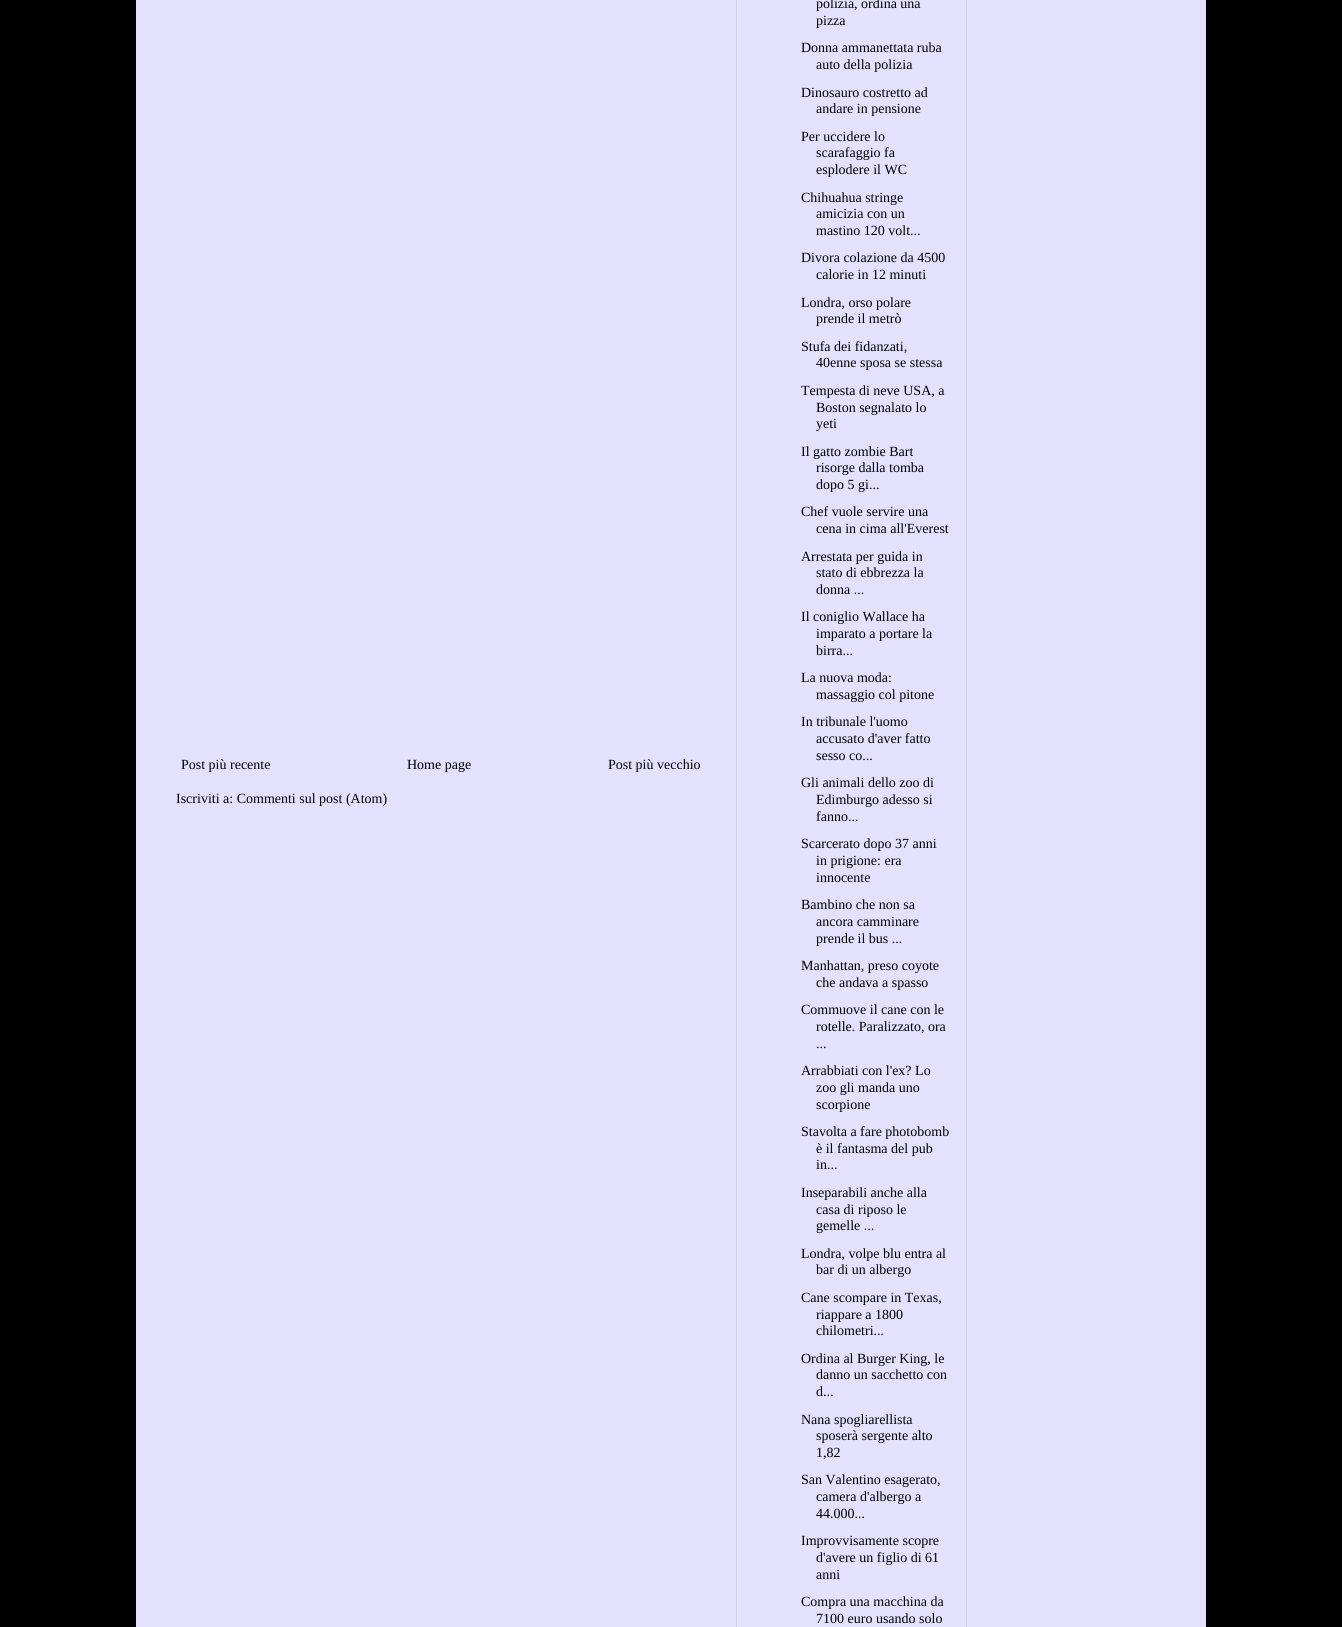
import math
import cairocffi as cairo

surface = cairo.ImageSurface(cairo.FORMAT_RGB24, 1342, 1627)
ctx = cairo.Context(surface)
options = cairo.FontOptions()
options.set_hint_metrics(cairo.HINT_METRICS_OFF)
options.set_hint_style(cairo.HINT_STYLE_NONE)
ctx.set_font_options(options)
ctx.set_miter_limit(4)


def rgb(r, g, b):
    ctx.set_source_rgb(r / 255, g / 255, b / 255)


def face(family, size, italic, bold):
    ctx.select_font_face(family, cairo.FONT_SLANT_ITALIC if italic else cairo.FONT_SLANT_NORMAL, cairo.FONT_WEIGHT_BOLD if bold else cairo.FONT_WEIGHT_NORMAL)
    ctx.set_font_size(size)


def label(x, y, s):
    ctx.move_to(x, y)
    ctx.show_text(s)


def rect(x, y, w, h):
    ctx.rectangle(x, y, w, h)
    ctx.fill()


rgb(0, 0, 0)
ctx.paint()
rgb(228, 225, 255)
rect(136, 0, 1070, 1627)
face('Liberation Serif', 14, 0, 0)
rgb(0, 0, 0)
label(181, 769, 'Post più recente')
label(407, 769, 'Home page')
label(608, 769, 'Post più vecchio')
label(176, 803, 'Iscriviti a: Commenti sul post (Atom)')
label(816, 8, 'polizia, ordina una')
label(816, 25, 'pizza')
label(801, 52, 'Donna ammanettata ruba')
label(816, 69, 'auto della polizia')
label(801, 97, 'Dinosauro costretto ad')
label(816, 113, 'andare in pensione')
label(801, 141, 'Per uccidere lo')
label(816, 157, 'scarafaggio fa')
label(816, 174, 'esplodere il WC')
label(801, 202, 'Chihuahua stringe')
label(816, 218, 'amicizia con un')
label(816, 235, 'mastino 120 volt...')
label(801, 262, 'Divora colazione da 4500')
label(816, 279, 'calorie in 12 minuti')
label(801, 307, 'Londra, orso polare')
label(816, 323, 'prende il metrò')
label(801, 351, 'Stufa dei fidanzati,')
label(816, 367, '40enne sposa se stessa')
label(801, 395, 'Tempesta di neve USA, a')
label(816, 412, 'Boston segnalato lo')
label(816, 428, 'yeti')
label(801, 456, 'Il gatto zombie Bart')
label(816, 472, 'risorge dalla tomba')
label(816, 489, 'dopo 5 gi...')
label(801, 516, 'Chef vuole servire una')
label(816, 533, 'cena in cima all\'Everest')
label(801, 561, 'Arrestata per guida in')
label(816, 577, 'stato di ebbrezza la')
label(816, 594, 'donna ...')
label(801, 621, 'Il coniglio Wallace ha')
label(816, 638, 'imparato a portare la')
label(816, 655, 'birra...')
label(801, 682, 'La nuova moda:')
label(816, 699, 'massaggio col pitone')
label(801, 726, 'In tribunale l\'uomo')
label(816, 743, 'accusato d\'aver fatto')
label(816, 760, 'sesso co...')
label(801, 787, 'Gli animali dello zoo di')
label(816, 804, 'Edimburgo adesso si')
label(816, 821, 'fanno...')
label(801, 848, 'Scarcerato dopo 37 anni')
label(816, 865, 'in prigione: era')
label(816, 882, 'innocente')
label(801, 909, 'Bambino che non sa')
label(816, 926, 'ancora camminare')
label(816, 943, 'prende il bus ...')
label(801, 970, 'Manhattan, preso coyote')
label(816, 987, 'che andava a spasso')
label(801, 1014, 'Commuove il cane con le')
label(816, 1031, 'rotelle. Paralizzato, ora')
label(816, 1048, '...')
label(801, 1075, 'Arrabbiati con l\'ex? Lo')
label(816, 1092, 'zoo gli manda uno')
label(816, 1109, 'scorpione')
label(801, 1136, 'Stavolta a fare photobomb')
label(816, 1153, 'è il fantasma del pub')
label(816, 1169, 'in...')
label(801, 1197, 'Inseparabili anche alla')
label(816, 1214, 'casa di riposo le')
label(816, 1230, 'gemelle ...')
label(801, 1258, 'Londra, volpe blu entra al')
label(816, 1274, 'bar di un albergo')
label(801, 1302, 'Cane scompare in Texas,')
label(816, 1319, 'riappare a 1800')
label(816, 1335, 'chilometri...')
label(801, 1363, 'Ordina al Burger King, le')
label(816, 1379, 'danno un sacchetto con')
label(816, 1396, 'd...')
label(801, 1424, 'Nana spogliarellista')
label(816, 1440, 'sposerà sergente alto')
label(816, 1457, '1,82')
label(801, 1484, 'San Valentino esagerato,')
label(816, 1501, 'camera d\'albergo a')
label(816, 1518, '44.000...')
label(801, 1545, 'Improvvisamente scopre')
label(816, 1562, 'd\'avere un figlio di 61')
label(816, 1579, 'anni')
label(801, 1606, 'Compra una macchina da')
label(816, 1623, '7100 euro usando solo')
rgb(211, 212, 233)
rect(966, 0, 1, 1627)
rect(736, 0, 1, 1627)
surface.write_to_png('render.png')
